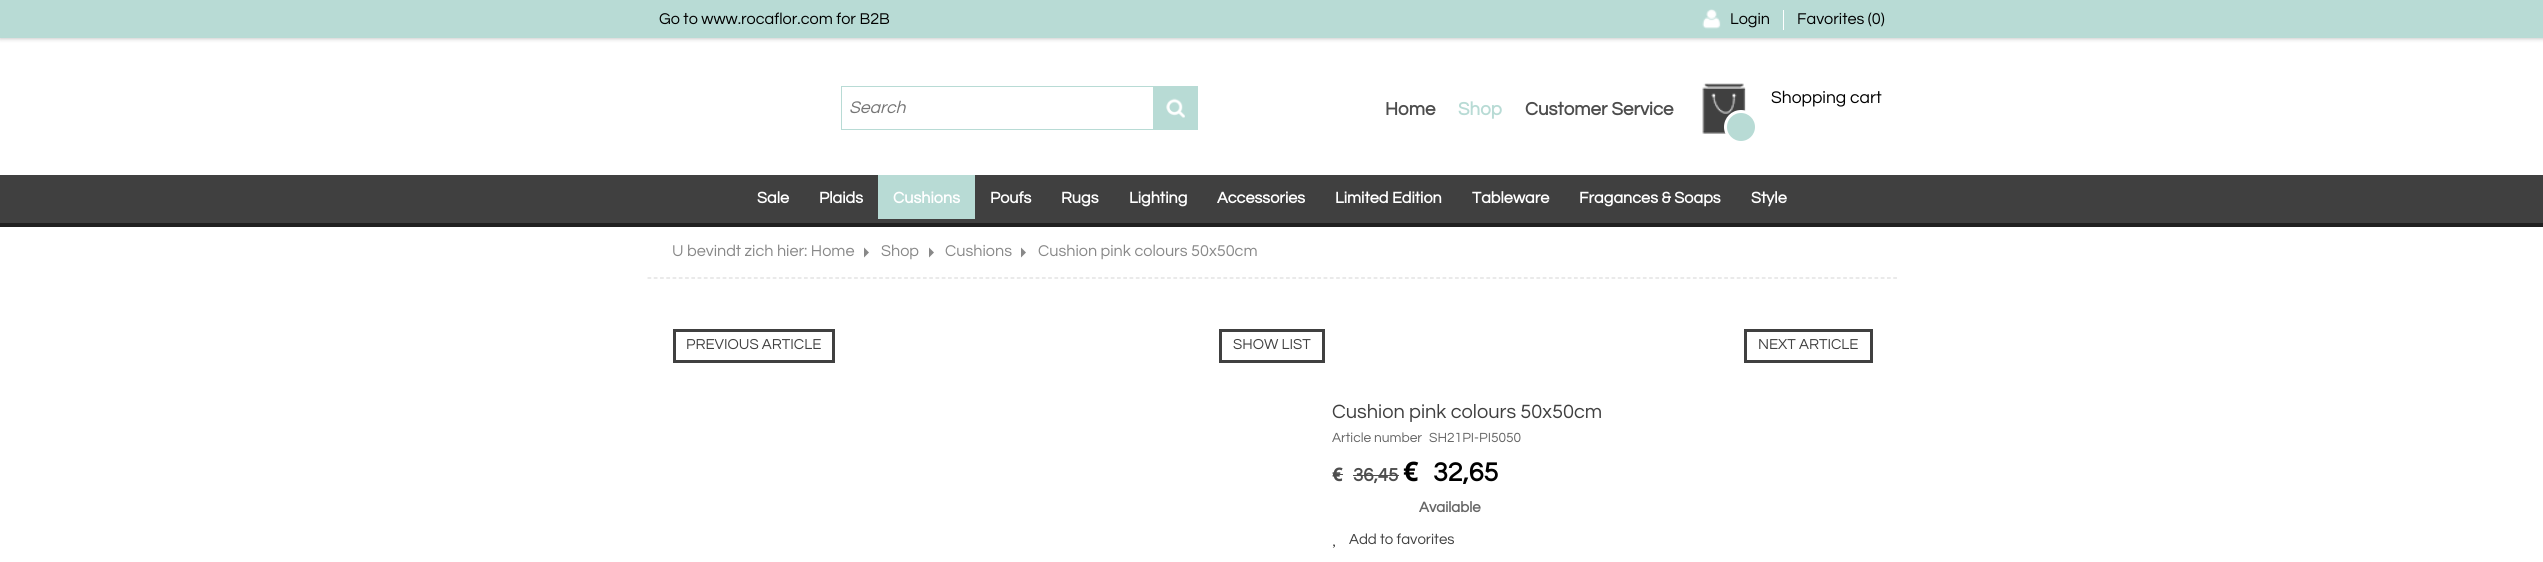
import math
import cairocffi as cairo

surface = cairo.ImageSurface(cairo.FORMAT_RGB24, 2543, 562)
ctx = cairo.Context(surface)
options = cairo.FontOptions()
options.set_hint_metrics(cairo.HINT_METRICS_OFF)
options.set_hint_style(cairo.HINT_STYLE_NONE)
ctx.set_font_options(options)
ctx.set_miter_limit(4)


def rgb(r, g, b):
    ctx.set_source_rgb(r / 255, g / 255, b / 255)


def face(family, size, italic, bold):
    ctx.select_font_face(family, cairo.FONT_SLANT_ITALIC if italic else cairo.FONT_SLANT_NORMAL, cairo.FONT_WEIGHT_BOLD if bold else cairo.FONT_WEIGHT_NORMAL)
    ctx.set_font_size(size)


def label(x, y, s):
    ctx.move_to(x, y)
    ctx.show_text(s)


def rect(x, y, w, h):
    ctx.rectangle(x, y, w, h)
    ctx.fill()


def rrect(x, y, w, h, r):
    ctx.new_sub_path()
    for i, (u, v) in enumerate([(x + w - r, y + h - r), (x + r, y + h - r), (x + r, y + r), (x + w - r, y + r)]):
        ctx.arc(u, v, r, i * math.pi / 2, (i + 1) * math.pi / 2)
    ctx.close_path()


def soft_shadow(x, y, w, h, r, blur, alpha):
    ctx.push_group_with_content(cairo.CONTENT_ALPHA)
    ctx.set_operator(cairo.OPERATOR_SOURCE)
    for i in range(15, -16, -2):
        e = blur * i / 6
        if min(w, h) + 2 * e > 0:
            ctx.set_source_rgba(0, 0, 0, alpha * math.erfc((i - 1) / 8.5) / 2)
            rrect(x - e, y - e, w + 2 * e, h + 2 * e, max(0, min(r + e + blur * .6, min(w, h) / 2 + e)))
            ctx.fill()
    ctx.mask(ctx.pop_group())


def image(path, x, y, w, h):
    ctx.save()
    ctx.set_source_surface(cairo.ImageSurface.create_from_png(path), x, y)
    ctx.rectangle(x, y, w, h)
    ctx.fill()
    ctx.restore()


rgb(255, 255, 255)
ctx.paint()
rgb(0, 0, 0)
soft_shadow(0, 0, 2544, 38, 0, 2.5, 0.3)
rgb(184, 219, 213)
rect(0, 0, 2543, 38)
face('Questrial', 16.25, 0, 0)
rgb(0, 0, 0)
label(659, 24, 'Go to www.rocaflor.com for B2B')
image('image0.png', 1702, 9, 19, 20)
label(1730, 24, 'Login')
rgb(255, 255, 255)
rect(1783, 10, 1, 20)
rgb(0, 0, 0)
label(1797, 24, 'Favorites (0)')
ctx.rectangle(841.5, 86.5, 312, 43)
rgb(184, 219, 213)
ctx.set_line_width(1)
ctx.stroke()
face('Questrial', 17.5, 1, 0)
rgb(117, 117, 117)
label(849, 113, 'Search')
rgb(184, 219, 213)
rect(1154, 86, 44, 44)
image('image1.png', 1166, 98, 19, 20)
face('Questrial', 18.75, 0, 1)
rgb(77, 77, 77)
label(1385, 115, 'Home')
rgb(184, 219, 213)
label(1458, 115, 'Shop')
rgb(77, 77, 77)
label(1525, 115, 'Customer Service')
image('image2.png', 1702, 83, 44, 51)
rgb(184, 219, 213)
ctx.arc(1741, 127, 15.5, 0, 2 * math.pi)
ctx.fill_preserve()
rgb(255, 255, 255)
ctx.set_line_width(3)
ctx.stroke()
face('Questrial', 17.5, 0, 0)
rgb(0, 0, 0)
label(1771, 103, 'Shopping cart')
rgb(64, 64, 64)
rect(0, 175, 2543, 48)
rgb(32, 32, 32)
rect(0, 223, 2543, 4)
face('Questrial', 16.25, 0, 1)
rgb(255, 255, 255)
label(757, 203, 'Sale')
label(819, 203, 'Plaids')
rgb(184, 219, 213)
rect(878, 175, 97, 44)
rgb(255, 255, 255)
label(893, 203, 'Cushions')
label(990, 203, 'Poufs')
label(1061, 203, 'Rugs')
label(1129, 203, 'Lighting')
label(1217, 203, 'Accessories')
label(1335, 203, 'Limited Edition')
label(1472, 203, 'Tableware')
label(1579, 203, 'Fragances & Soaps')
label(1751, 203, 'Style')
ctx.new_path()
ctx.move_to(647.5, 278)
ctx.line_to(1897.5, 278)
rgb(221, 221, 221)
ctx.set_line_width(1.2)
ctx.set_dash([3.75, 2.51])
ctx.stroke()
face('Questrial', 16.25, 0, 0)
rgb(136, 136, 136)
label(672, 256, 'U bevindt zich hier: Home')
ctx.new_path()
ctx.move_to(864, 257.5)
ctx.line_to(864, 247.5)
ctx.line_to(869, 252.5)
ctx.close_path()
ctx.fill()
label(881, 256, 'Shop')
ctx.new_path()
ctx.move_to(929, 257.5)
ctx.line_to(929, 247.5)
ctx.line_to(934, 252.5)
ctx.close_path()
ctx.fill()
label(945, 256, 'Cushions')
ctx.new_path()
ctx.move_to(1021, 257.5)
ctx.line_to(1021, 247.5)
ctx.line_to(1026, 252.5)
ctx.close_path()
ctx.fill()
label(1038, 256, 'Cushion pink colours 50x50cm')
ctx.rectangle(674.5, 330.5, 159, 31)
rgb(64, 64, 64)
ctx.set_line_width(3)
ctx.set_dash([])
ctx.stroke()
face('Questrial', 15, 0, 0)
label(686, 349, 'PREVIOUS ARTICLE')
ctx.rectangle(1220.5, 330.5, 103, 31)
ctx.stroke()
label(1233, 349, 'SHOW LIST')
ctx.rectangle(1745.5, 330.5, 126, 31)
ctx.stroke()
label(1758, 349, 'NEXT ARTICLE')
face('Questrial', 20, 0, 0)
label(1332, 418, 'Cushion pink colours 50x50cm')
face('Questrial', 13.75, 0, 0)
rgb(102, 102, 102)
label(1332, 442, 'Article number')
label(1429, 442, 'SH21PI-PI5050')
face('Open Sans', 18.75, 0, 1)
rgb(77, 77, 77)
label(1332, 481, '€')
rect(1333, 474, 10, 1)
face('Questrial', 18.75, 0, 1)
label(1353, 481, '36,45')
rect(1353, 475, 46, 1)
face('Open Sans', 27, 0, 1)
rgb(0, 0, 0)
label(1403, 481, '€')
face('Questrial', 27, 0, 1)
label(1433, 481, '32,65')
face('Questrial', 15, 0, 1)
rgb(102, 102, 102)
label(1419, 512, 'Available')
face('Questrial', 15, 0, 0)
rgb(64, 64, 64)
label(1349, 544, 'Add to favorites')
image('image3.png', 1332, 544, 3, 4)
surface.write_to_png('render.png')
